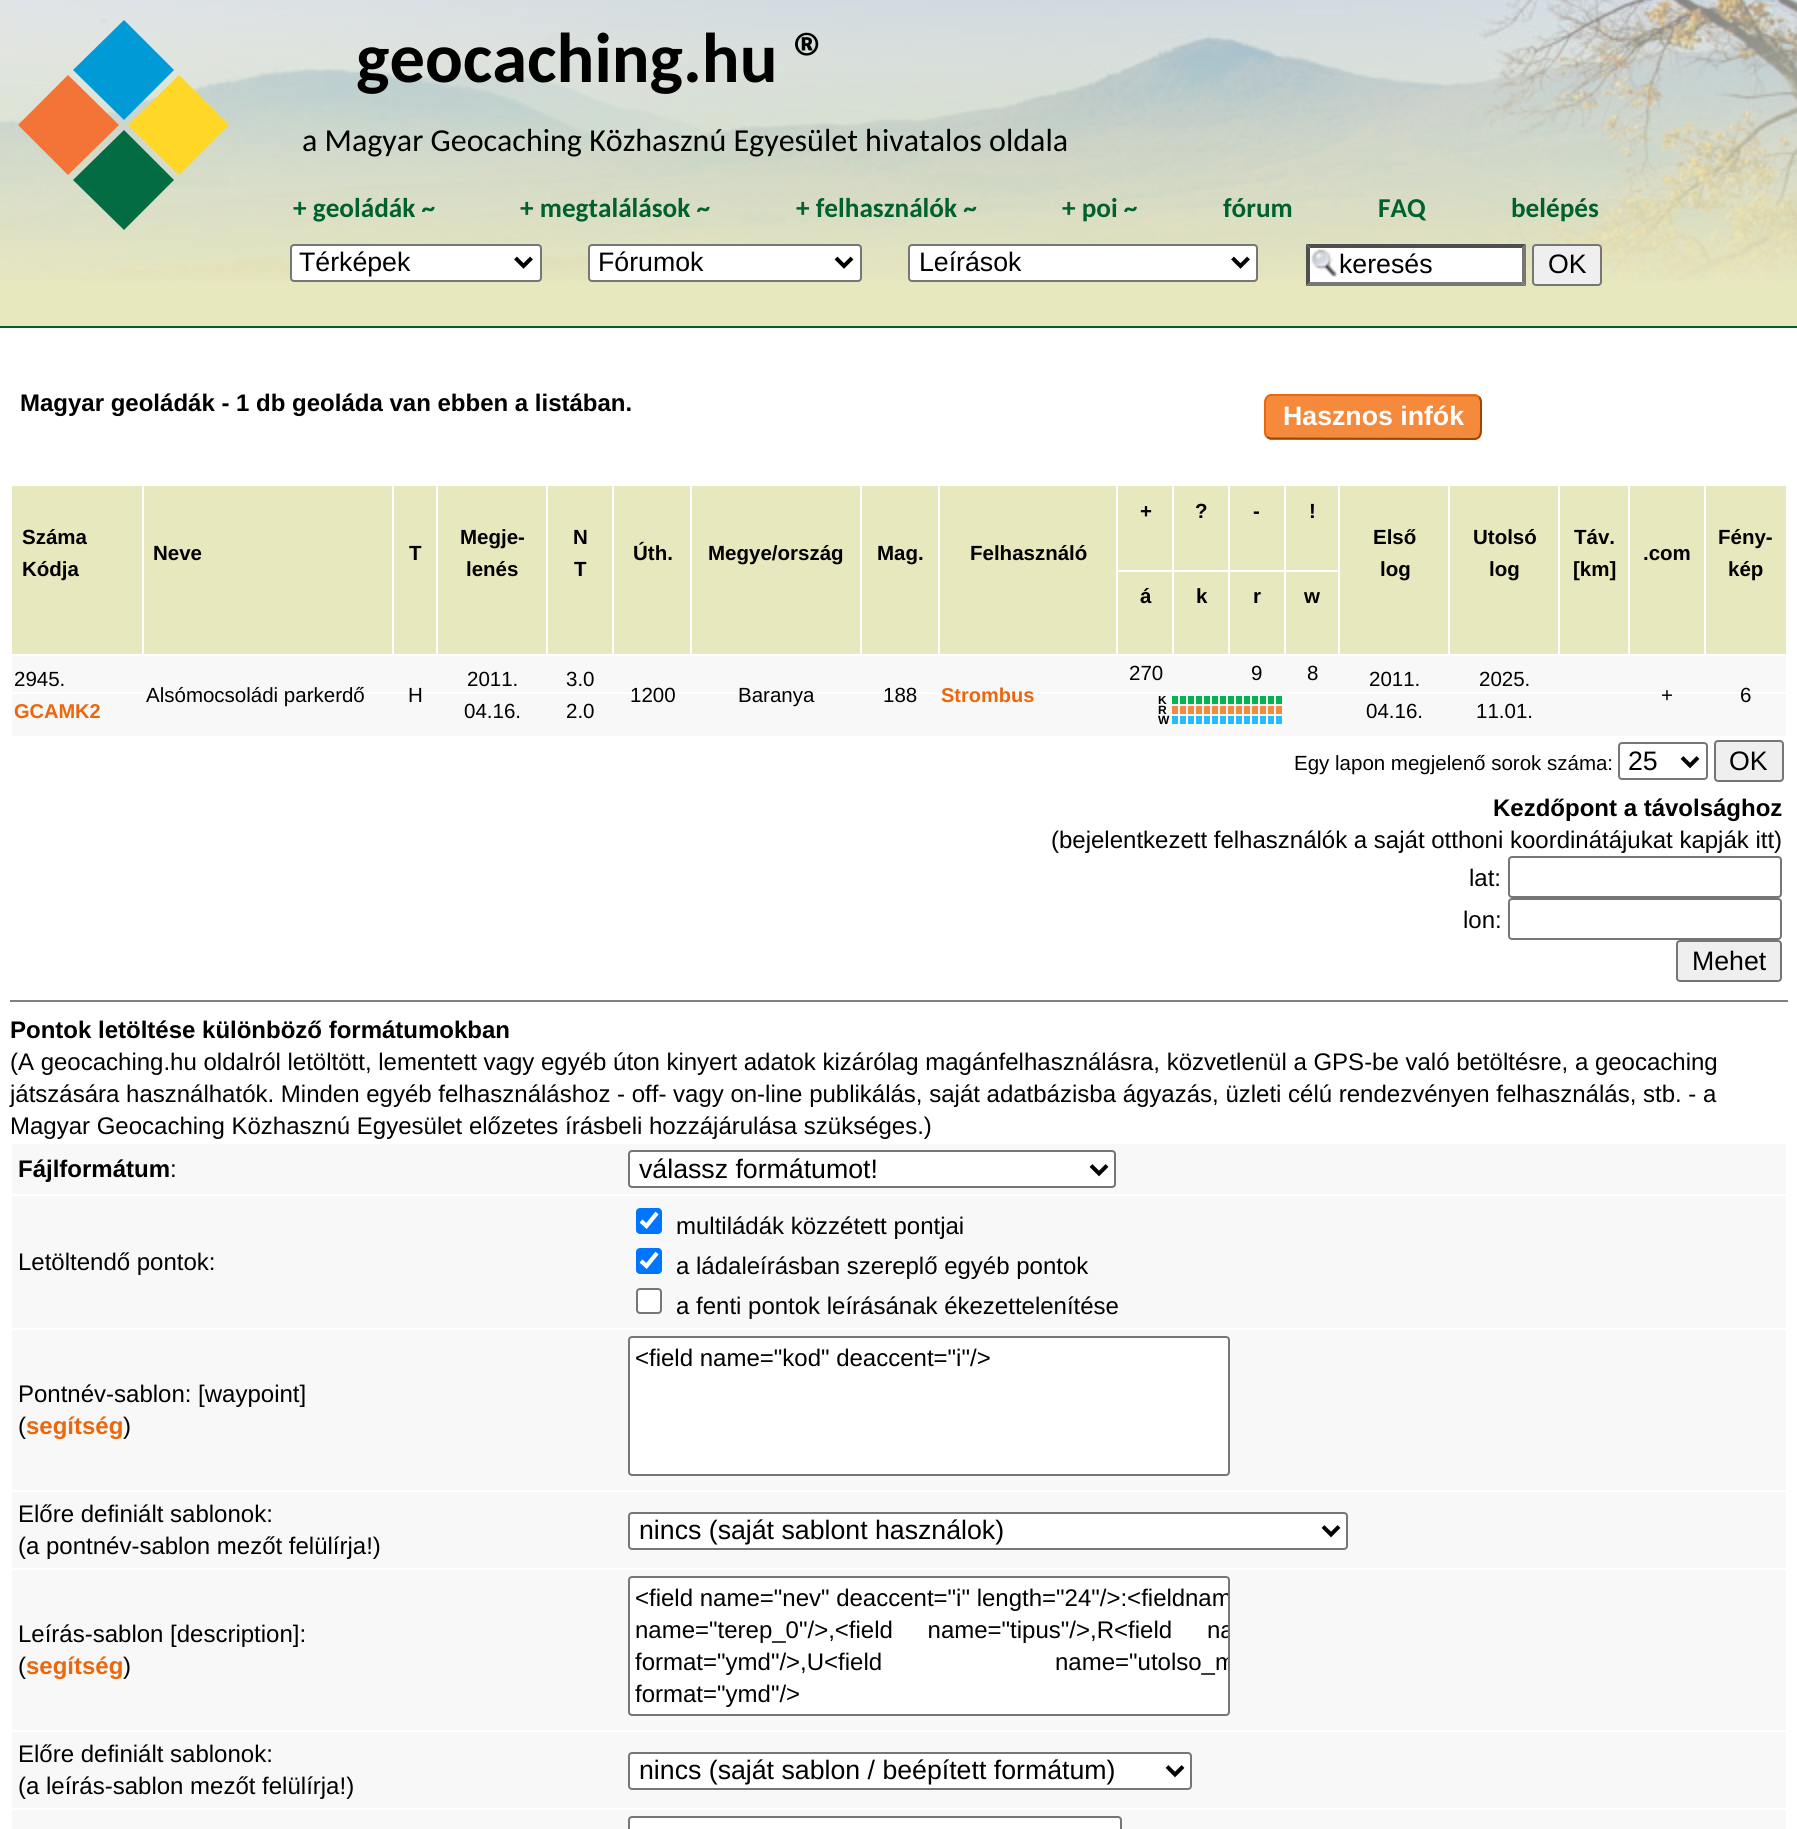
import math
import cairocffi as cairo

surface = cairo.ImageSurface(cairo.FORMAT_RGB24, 1797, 1829)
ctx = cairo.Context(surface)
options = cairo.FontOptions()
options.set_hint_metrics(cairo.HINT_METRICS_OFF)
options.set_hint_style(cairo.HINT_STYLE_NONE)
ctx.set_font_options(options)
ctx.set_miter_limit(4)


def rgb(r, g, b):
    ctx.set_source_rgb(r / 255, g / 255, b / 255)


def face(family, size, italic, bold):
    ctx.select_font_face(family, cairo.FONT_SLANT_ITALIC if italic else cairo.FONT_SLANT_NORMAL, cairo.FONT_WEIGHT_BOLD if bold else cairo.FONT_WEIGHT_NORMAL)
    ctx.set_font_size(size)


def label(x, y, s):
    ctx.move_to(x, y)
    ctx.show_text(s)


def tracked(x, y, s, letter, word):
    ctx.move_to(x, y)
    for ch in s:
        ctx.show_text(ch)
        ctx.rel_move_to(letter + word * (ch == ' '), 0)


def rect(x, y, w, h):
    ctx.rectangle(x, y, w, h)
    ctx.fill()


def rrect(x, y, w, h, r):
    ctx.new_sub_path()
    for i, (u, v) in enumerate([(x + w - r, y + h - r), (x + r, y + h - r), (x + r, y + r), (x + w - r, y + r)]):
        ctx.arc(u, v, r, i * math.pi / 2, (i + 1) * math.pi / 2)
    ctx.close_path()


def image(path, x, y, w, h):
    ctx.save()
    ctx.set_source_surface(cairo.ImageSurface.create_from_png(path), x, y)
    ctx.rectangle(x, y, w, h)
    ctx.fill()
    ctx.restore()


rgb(232, 232, 191)
ctx.paint()
image('image0.png', 0, 0, 1797, 281)
rgb(243, 116, 54)
ctx.new_path()
ctx.move_to(119, 125)
ctx.line_to(68, 175)
ctx.line_to(18, 125)
ctx.line_to(68, 75)
ctx.close_path()
ctx.fill()
rgb(0, 155, 215)
ctx.new_path()
ctx.move_to(174, 70)
ctx.line_to(124, 120)
ctx.line_to(73, 70)
ctx.line_to(124, 20)
ctx.close_path()
ctx.fill()
rgb(3, 108, 67)
ctx.new_path()
ctx.move_to(174, 180)
ctx.line_to(124, 230)
ctx.line_to(73, 180)
ctx.line_to(124, 130)
ctx.close_path()
ctx.fill()
rgb(255, 215, 38)
ctx.new_path()
ctx.move_to(229, 125)
ctx.line_to(179, 175)
ctx.line_to(128, 125)
ctx.line_to(179, 75)
ctx.close_path()
ctx.fill()
face('Carlito', 70.5, 0, 1)
rgb(0, 0, 0)
label(356, 82, 'geocaching.hu ®')
face('Carlito', 32, 0, 0)
label(302, 151, 'a Magyar Geocaching Közhasznú Egyesület hivatalos oldala')
face('Carlito', 27.25, 0, 1)
rgb(0, 97, 46)
label(293, 217, '+ geoládák ~')
label(520, 217, '+ megtalálások ~')
label(796, 217, '+ felhasználók ~')
label(1062, 217, '+ poi ~')
label(1223, 217, 'fórum')
label(1378, 217, 'FAQ')
label(1511, 217, 'belépés')
rgb(255, 255, 255)
rrect(291, 245, 250, 36, 3)
ctx.fill_preserve()
rgb(118, 118, 118)
ctx.stroke()
ctx.new_path()
ctx.move_to(515.5, 258)
ctx.line_to(523.5, 266)
ctx.line_to(531.5, 258)
rgb(0, 0, 0)
ctx.set_line_width(4)
ctx.stroke()
face('Liberation Sans', 26.7, 0, 0)
label(299, 271, 'Térképek')
rgb(255, 255, 255)
rrect(589, 245, 272, 36, 3)
ctx.fill_preserve()
rgb(118, 118, 118)
ctx.set_line_width(2)
ctx.stroke()
ctx.new_path()
ctx.move_to(836, 258)
ctx.line_to(844, 266)
ctx.line_to(852, 258)
rgb(0, 0, 0)
ctx.set_line_width(4)
ctx.stroke()
label(598, 271, 'Fórumok')
rgb(255, 255, 255)
rrect(909, 245, 348, 36, 3)
ctx.fill_preserve()
rgb(118, 118, 118)
ctx.set_line_width(2)
ctx.stroke()
ctx.new_path()
ctx.move_to(1232.5, 258)
ctx.line_to(1240.5, 266)
ctx.line_to(1248.5, 258)
rgb(0, 0, 0)
ctx.set_line_width(4)
ctx.stroke()
label(919, 271, 'Leírások')
rgb(255, 255, 255)
rect(1306, 244, 220, 42)
image('image1.png', 1311, 249, 26, 28)
rgb(79, 79, 79)
ctx.new_path()
ctx.move_to(1306, 244)
ctx.line_to(1526, 244)
ctx.line_to(1522, 248)
ctx.line_to(1310, 248)
ctx.close_path()
ctx.fill()
rgb(118, 118, 118)
ctx.new_path()
ctx.move_to(1526, 244)
ctx.line_to(1526, 286)
ctx.line_to(1522, 282)
ctx.line_to(1522, 248)
ctx.close_path()
ctx.fill()
ctx.new_path()
ctx.move_to(1526, 286)
ctx.line_to(1306, 286)
ctx.line_to(1310, 282)
ctx.line_to(1522, 282)
ctx.close_path()
ctx.fill()
rgb(79, 79, 79)
ctx.new_path()
ctx.move_to(1306, 286)
ctx.line_to(1306, 244)
ctx.line_to(1310, 248)
ctx.line_to(1310, 282)
ctx.close_path()
ctx.fill()
rgb(0, 0, 0)
label(1339, 273, 'keresés')
rgb(239, 239, 239)
rrect(1533, 245, 68, 40, 3)
ctx.fill_preserve()
rgb(118, 118, 118)
ctx.set_line_width(2)
ctx.stroke()
rgb(0, 0, 0)
label(1548, 273, 'OK')
rgb(255, 255, 255)
rect(0, 328, 1797, 1501)
rgb(0, 97, 46)
rect(0, 326, 1797, 2)
face('Liberation Sans', 24, 0, 1)
rgb(0, 0, 0)
label(20, 411, 'Magyar geoládák - 1 db geoláda van ebben a listában.')
rgb(245, 138, 61)
rrect(1264, 394, 218, 46, 8)
ctx.fill()
ctx.new_path()
ctx.move_to(1479, 397)
ctx.curve_to(1481.5, 399.5, 1481, 403.5, 1481, 407)
ctx.line_to(1481, 427)
ctx.curve_to(1481, 432, 1481, 439, 1474, 439)
ctx.line_to(1270, 438.5)
ctx.line_to(1267, 437)
rgb(156, 69, 8)
ctx.stroke()
ctx.new_path()
ctx.move_to(1267, 437)
ctx.curve_to(1264.5, 434.5, 1265, 430.5, 1265, 427)
ctx.line_to(1265, 407)
ctx.curve_to(1265, 402, 1265, 395, 1272, 395)
ctx.line_to(1476, 395.5)
ctx.line_to(1479, 397)
rgb(234, 103, 12)
ctx.stroke()
face('Liberation Sans', 26.7, 0, 1)
rgb(255, 255, 255)
label(1283, 425, 'Hasznos infók')
rgb(232, 232, 191)
rect(1118, 486, 54, 84)
face('Liberation Sans', 20.5, 0, 1)
rgb(0, 0, 0)
label(1140, 518, '+')
rgb(232, 232, 191)
rect(1174, 486, 54, 84)
rgb(0, 0, 0)
label(1195, 518, '?')
rgb(232, 232, 191)
rect(1230, 486, 54, 84)
rgb(0, 0, 0)
label(1253, 518, '-')
rgb(232, 232, 191)
rect(1286, 486, 52, 84)
rgb(0, 0, 0)
label(1309, 518, '!')
rgb(232, 232, 191)
rect(12, 486, 130, 168)
rgb(0, 0, 0)
label(22, 544, 'Száma')
label(22, 576, 'Kódja')
rgb(232, 232, 191)
rect(144, 486, 248, 168)
rgb(0, 0, 0)
label(153, 560, 'Neve')
rgb(232, 232, 191)
rect(394, 486, 42, 168)
rgb(0, 0, 0)
label(409, 560, 'T')
rgb(232, 232, 191)
rect(438, 486, 108, 168)
rgb(0, 0, 0)
label(460, 544, 'Megje-')
label(466, 576, 'lenés')
rgb(232, 232, 191)
rect(548, 486, 64, 168)
rgb(0, 0, 0)
label(573, 544, 'N')
label(574, 576, 'T')
rgb(232, 232, 191)
rect(614, 486, 76, 168)
rgb(0, 0, 0)
label(633, 560, 'Úth.')
rgb(232, 232, 191)
rect(692, 486, 168, 168)
rgb(0, 0, 0)
label(708, 560, 'Megye/ország')
rgb(232, 232, 191)
rect(862, 486, 76, 168)
rgb(0, 0, 0)
label(877, 560, 'Mag.')
rgb(232, 232, 191)
rect(940, 486, 176, 168)
rgb(0, 0, 0)
label(970, 560, 'Felhasználó')
rgb(232, 232, 191)
rect(1340, 486, 108, 168)
rgb(0, 0, 0)
label(1373, 544, 'Első')
label(1380, 576, 'log')
rgb(232, 232, 191)
rect(1450, 486, 108, 168)
rgb(0, 0, 0)
label(1473, 544, 'Utolsó')
label(1489, 576, 'log')
rgb(232, 232, 191)
rect(1560, 486, 68, 168)
rgb(0, 0, 0)
label(1574, 544, 'Táv.')
label(1573, 576, '[km]')
rgb(232, 232, 191)
rect(1630, 486, 74, 168)
rgb(0, 0, 0)
label(1643, 560, '.com')
rgb(232, 232, 191)
rect(1706, 486, 80, 168)
rgb(0, 0, 0)
label(1718, 544, 'Fény-')
label(1728, 576, 'kép')
rgb(232, 232, 191)
rect(1118, 572, 54, 82)
rgb(0, 0, 0)
label(1140, 603, 'á')
rgb(232, 232, 191)
rect(1174, 572, 54, 82)
rgb(0, 0, 0)
label(1196, 603, 'k')
rgb(232, 232, 191)
rect(1230, 572, 54, 82)
rgb(0, 0, 0)
label(1253, 603, 'r')
rgb(232, 232, 191)
rect(1286, 572, 52, 82)
rgb(0, 0, 0)
label(1304, 603, 'w')
rgb(248, 248, 248)
rect(12, 656, 1774, 36)
face('Liberation Sans', 20.5, 0, 0)
rgb(0, 0, 0)
label(14, 686, '2945.')
rgb(248, 248, 248)
rect(12, 694, 1774, 42)
face('Liberation Sans', 20, 0, 1)
rgb(234, 103, 12)
label(14, 718, 'GCAMK2')
face('Liberation Sans', 20.5, 0, 0)
rgb(0, 0, 0)
label(146, 702, 'Alsómocsoládi parkerdő')
label(408, 702, 'H')
label(467, 686, '2011.')
label(464, 718, '04.16.')
label(566, 686, '3.0')
label(566, 718, '2.0')
label(630, 702, '1200')
label(738, 702, 'Baranya')
label(883, 702, '188')
face('Liberation Sans', 20, 0, 1)
rgb(234, 103, 12)
label(941, 702, 'Strombus')
face('Liberation Sans', 20.5, 0, 0)
rgb(0, 0, 0)
label(1129, 680, '270')
label(1251, 680, '9')
label(1307, 680, '8')
label(1369, 686, '2011.')
label(1366, 718, '04.16.')
label(1479, 686, '2025.')
label(1476, 718, '11.01.')
label(1661, 702, '+')
label(1740, 702, '6')
ctx.save()
ctx.rectangle(1158, 696, 140, 28)
ctx.clip()
face('Liberation Sans', 12, 0, 1)
label(1158, 704, 'K')
ctx.restore()
ctx.new_path()
ctx.move_to(1172, 700)
ctx.line_to(1284, 700)
rgb(0, 179, 83)
ctx.set_line_width(8)
ctx.set_dash([6, 2])
ctx.stroke()
face('Liberation Sans', 12, 0, 1)
rgb(0, 0, 0)
label(1158, 714, 'R')
ctx.new_path()
ctx.move_to(1172, 710)
ctx.line_to(1284, 710)
rgb(245, 138, 61)
ctx.stroke()
rgb(0, 0, 0)
label(1158, 724, 'W')
ctx.new_path()
ctx.move_to(1172, 720)
ctx.line_to(1284, 720)
rgb(40, 187, 255)
ctx.stroke()
face('Liberation Sans', 20.5, 0, 0)
rgb(0, 0, 0)
label(1294, 770, 'Egy lapon megjelenő sorok száma:')
rrect(1619, 743, 88, 36, 3)
rgb(118, 118, 118)
ctx.set_line_width(2)
ctx.set_dash([])
ctx.stroke()
ctx.new_path()
ctx.move_to(1682, 757.5)
ctx.line_to(1690, 765.5)
ctx.line_to(1698, 757.5)
rgb(0, 0, 0)
ctx.set_line_width(4)
ctx.stroke()
face('Liberation Sans', 26.7, 0, 0)
label(1628, 770, '25')
rgb(239, 239, 239)
rrect(1715, 741, 68, 40, 3)
ctx.fill_preserve()
rgb(118, 118, 118)
ctx.set_line_width(2)
ctx.stroke()
rgb(0, 0, 0)
label(1729, 770, 'OK')
face('Liberation Sans', 24, 0, 1)
label(1493, 816, 'Kezdőpont a távolsághoz')
face('Liberation Sans', 24, 0, 0)
label(1051, 848, '(bejelentkezett felhasználók a saját otthoni koordinátájukat kapják itt)')
label(1469, 886, 'lat:')
rrect(1509, 857, 272, 40, 3)
rgb(118, 118, 118)
ctx.stroke()
rgb(0, 0, 0)
label(1463, 928, 'lon:')
rrect(1509, 899, 272, 40, 3)
rgb(118, 118, 118)
ctx.stroke()
rgb(239, 239, 239)
rrect(1677, 941, 104, 40, 3)
ctx.fill_preserve()
rgb(118, 118, 118)
ctx.stroke()
face('Liberation Sans', 26.7, 0, 0)
rgb(0, 0, 0)
label(1692, 970, 'Mehet')
rgb(128, 128, 128)
rect(10, 1000, 1778, 2)
face('Liberation Sans', 24, 0, 1)
rgb(0, 0, 0)
label(10, 1038, 'Pontok letöltése különböző formátumokban')
face('Liberation Sans', 24, 0, 0)
label(10, 1070, '(A geocaching.hu oldalról letöltött, lementett vagy egyéb úton kinyert adatok kizárólag magánfelhasználásra, közvetlenül a GPS-be való betöltésre, a geocaching')
label(10, 1102, 'játszására használhatók. Minden egyéb felhasználáshoz - off- vagy on-line publikálás, saját adatbázisba ágyazás, üzleti célú rendezvényen felhasználás, stb. - a')
label(10, 1134, 'Magyar Geocaching Közhasznú Egyesület előzetes írásbeli hozzájárulása szükséges.)')
rgb(248, 248, 248)
rect(12, 1144, 1774, 50)
face('Liberation Sans', 24, 0, 1)
rgb(0, 0, 0)
label(18, 1177, 'Fájlformátum')
face('Liberation Sans', 24, 0, 0)
label(170, 1177, ':')
rgb(255, 255, 255)
rrect(629, 1151, 486, 36, 3)
ctx.fill_preserve()
rgb(118, 118, 118)
ctx.stroke()
ctx.new_path()
ctx.move_to(1091, 1165.5)
ctx.line_to(1099, 1173.5)
ctx.line_to(1107, 1165.5)
rgb(0, 0, 0)
ctx.set_line_width(4)
ctx.stroke()
face('Liberation Sans', 26.7, 0, 0)
label(639, 1178, 'válassz formátumot!')
rgb(248, 248, 248)
rect(12, 1196, 1774, 132)
face('Liberation Sans', 24, 0, 0)
rgb(0, 0, 0)
label(18, 1270, 'Letöltendő pontok:')
rgb(0, 117, 255)
rrect(636, 1208, 26, 26, 4)
ctx.fill()
ctx.new_path()
ctx.move_to(641, 1221)
ctx.line_to(646.5, 1226)
ctx.line_to(657, 1213)
rgb(255, 255, 255)
ctx.set_line_width(4.2)
ctx.stroke()
rgb(0, 0, 0)
label(676, 1234, 'multiládák közzétett pontjai')
rgb(0, 117, 255)
rrect(636, 1248, 26, 26, 4)
ctx.fill()
ctx.new_path()
ctx.move_to(641, 1261)
ctx.line_to(646.5, 1266)
ctx.line_to(657, 1253)
rgb(255, 255, 255)
ctx.stroke()
rgb(0, 0, 0)
label(676, 1274, 'a ládaleírásban szereplő egyéb pontok')
rgb(255, 255, 255)
rrect(637, 1289, 24, 24, 3)
ctx.fill_preserve()
rgb(118, 118, 118)
ctx.set_line_width(2)
ctx.stroke()
rgb(0, 0, 0)
label(676, 1314, 'a fenti pontok leírásának ékezettelenítése')
rgb(248, 248, 248)
rect(12, 1330, 1774, 160)
rgb(255, 255, 255)
rrect(629, 1337, 600, 138, 3)
ctx.fill_preserve()
rgb(118, 118, 118)
ctx.stroke()
rgb(0, 0, 0)
label(635, 1366, '<field name="kod" deaccent="i"/>')
label(18, 1402, 'Pontnév-sablon: [waypoint]')
label(18, 1434, '(')
face('Liberation Sans', 24, 0, 1)
rgb(234, 103, 12)
label(26, 1434, 'segítség')
face('Liberation Sans', 24, 0, 0)
rgb(0, 0, 0)
label(123, 1434, ')')
rgb(248, 248, 248)
rect(12, 1492, 1774, 76)
rgb(0, 0, 0)
label(18, 1522, 'Előre definiált sablonok:')
label(18, 1554, '(a pontnév-sablon mezőt felülírja!)')
rgb(255, 255, 255)
rrect(629, 1513, 718, 36, 3)
ctx.fill_preserve()
rgb(118, 118, 118)
ctx.stroke()
ctx.new_path()
ctx.move_to(1323, 1526.5)
ctx.line_to(1331, 1534.5)
ctx.line_to(1339, 1526.5)
rgb(0, 0, 0)
ctx.set_line_width(4)
ctx.stroke()
face('Liberation Sans', 26.7, 0, 0)
label(639, 1539, 'nincs (saját sablont használok)')
rgb(248, 248, 248)
rect(12, 1570, 1774, 160)
face('Liberation Sans', 24, 0, 0)
rgb(0, 0, 0)
label(18, 1642, 'Leírás-sablon [description]:')
label(18, 1674, '(')
face('Liberation Sans', 24, 0, 1)
rgb(234, 103, 12)
label(26, 1674, 'segítség')
face('Liberation Sans', 24, 0, 0)
rgb(0, 0, 0)
label(123, 1674, ')')
rgb(255, 255, 255)
rrect(629, 1577, 600, 138, 3)
ctx.fill_preserve()
rgb(118, 118, 118)
ctx.set_line_width(2)
ctx.stroke()
rgb(0, 0, 0)
label(635, 1606, '<field name="nev" deaccent="i" length="24"/>:<field')
ctx.save()
ctx.rectangle(630, 1578, 598, 136)
ctx.clip()
label(1185, 1606, 'nam')
ctx.restore()
tracked(635, 1638, 'name="terep_0"/>,<field name="tipus"/>,R<field', 0, 28)
ctx.save()
ctx.rectangle(630, 1578, 598, 136)
ctx.clip()
label(1207, 1638, 'na')
ctx.restore()
label(635, 1670, 'format="ymd"/>,U<field')
ctx.save()
ctx.rectangle(630, 1578, 598, 136)
ctx.clip()
label(1055, 1670, 'name="utolso_m')
ctx.restore()
label(635, 1702, 'format="ymd"/>')
rgb(248, 248, 248)
rect(12, 1732, 1774, 76)
rgb(0, 0, 0)
label(18, 1762, 'Előre definiált sablonok:')
label(18, 1794, '(a leírás-sablon mezőt felülírja!)')
rgb(255, 255, 255)
rrect(629, 1753, 562, 36, 3)
ctx.fill_preserve()
rgb(118, 118, 118)
ctx.stroke()
ctx.new_path()
ctx.move_to(1167, 1766.5)
ctx.line_to(1175, 1774.5)
ctx.line_to(1183, 1766.5)
rgb(0, 0, 0)
ctx.set_line_width(4)
ctx.stroke()
face('Liberation Sans', 26.7, 0, 0)
label(639, 1779, 'nincs (saját sablon / beépített formátum)')
rgb(248, 248, 248)
rect(12, 1810, 1774, 19)
rgb(255, 255, 255)
rrect(629, 1817, 492, 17, 3)
ctx.fill_preserve()
rgb(118, 118, 118)
ctx.set_line_width(2)
ctx.stroke()
surface.write_to_png('render.png')
